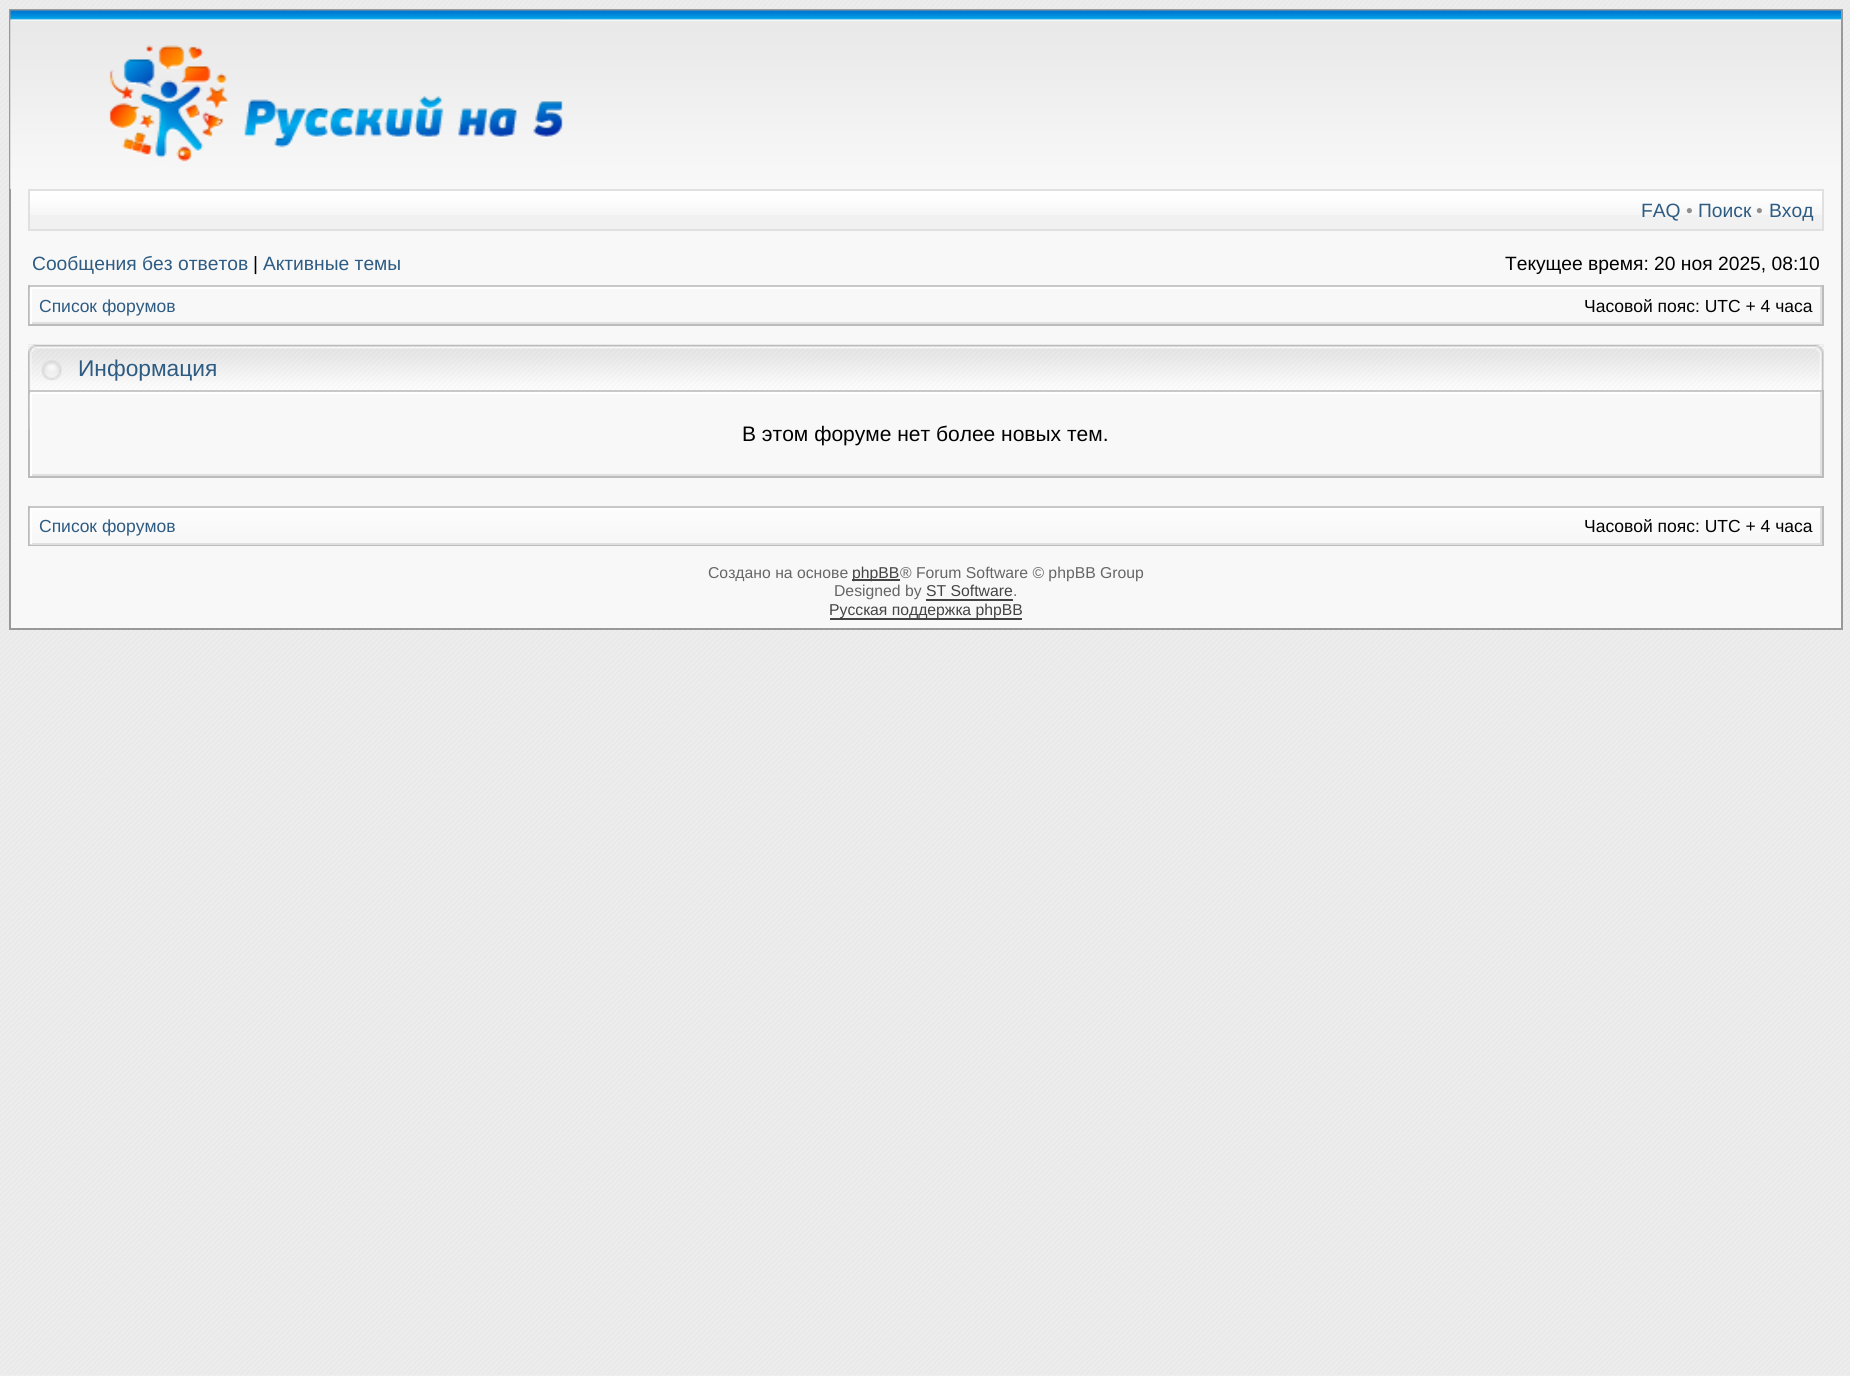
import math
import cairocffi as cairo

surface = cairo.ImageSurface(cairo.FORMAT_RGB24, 1850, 1376)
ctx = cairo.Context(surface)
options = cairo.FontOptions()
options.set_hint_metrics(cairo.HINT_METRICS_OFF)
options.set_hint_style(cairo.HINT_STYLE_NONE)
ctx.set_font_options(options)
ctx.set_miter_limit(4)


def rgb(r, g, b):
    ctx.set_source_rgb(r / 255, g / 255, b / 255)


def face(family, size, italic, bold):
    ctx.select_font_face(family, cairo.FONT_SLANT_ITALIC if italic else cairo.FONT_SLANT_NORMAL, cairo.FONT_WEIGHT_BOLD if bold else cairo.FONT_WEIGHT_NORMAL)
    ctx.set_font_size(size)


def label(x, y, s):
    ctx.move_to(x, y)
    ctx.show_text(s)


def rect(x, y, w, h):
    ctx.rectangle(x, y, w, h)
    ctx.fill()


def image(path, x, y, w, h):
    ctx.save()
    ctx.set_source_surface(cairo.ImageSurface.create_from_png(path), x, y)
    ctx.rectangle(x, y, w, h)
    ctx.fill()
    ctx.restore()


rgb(238, 238, 238)
ctx.paint()
image('image0.png', 0, 0, 1850, 1375)
rgb(248, 248, 248)
rect(11, 189, 1830, 439)
ctx.rectangle(10, 10, 1832, 619)
rgb(153, 153, 153)
ctx.stroke()
image('image1.png', 10, 10, 1831, 179)
image('image2.png', 10, 21, 553, 168)
rgb(241, 241, 241)
rect(30, 215, 1792, 14)
image('image3.png', 30, 191, 1792, 24)
ctx.rectangle(29, 190, 1794, 40)
rgb(224, 224, 224)
ctx.stroke()
face('Liberation Sans', 19.25, 0, 0)
rgb(46, 91, 130)
label(1641, 217, 'FAQ')
rgb(144, 144, 144)
label(1686, 217, '•')
rgb(46, 91, 130)
label(1698, 217, 'Поиск')
rgb(144, 144, 144)
label(1756, 217, '•')
rgb(46, 91, 130)
label(1769, 217, 'Вход')
label(32, 270, 'Сообщения без ответов')
rgb(0, 0, 0)
label(253, 270, '|')
rgb(46, 91, 130)
label(263, 270, 'Активные темы')
rgb(0, 0, 0)
label(1505, 270, 'Текущее время: 20 ноя 2025, 08:10')
rgb(200, 200, 200)
rect(28, 285, 1796, 2)
rgb(187, 187, 187)
rect(1822, 285, 2, 41)
rect(28, 324, 1796, 2)
rect(28, 285, 2, 41)
image('image4.png', 29, 288, 1, 36)
rgb(255, 255, 255)
rect(30, 287, 1792, 2)
rgb(224, 224, 224)
rect(1820, 287, 2, 37)
rect(30, 322, 1792, 2)
rgb(255, 255, 255)
rect(30, 287, 2, 37)
face('Liberation Sans', 17.5, 0, 0)
rgb(46, 91, 130)
label(39, 312, 'Список форумов')
rgb(0, 0, 0)
label(1584, 312, 'Часовой пояс: UTC + 4 часа')
image('image5.png', 28, 344, 1796, 46)
image('image6.png', 28, 344, 34, 46)
image('image7.png', 1815, 344, 9, 46)
face('Liberation Sans', 22.75, 0, 0)
rgb(46, 91, 130)
label(78, 376, 'Информация')
rgb(200, 200, 200)
rect(28, 390, 1796, 2)
rgb(187, 187, 187)
rect(1822, 390, 2, 88)
rect(28, 476, 1796, 2)
rect(28, 390, 2, 88)
image('image4.png', 29, 393, 1, 36)
rgb(255, 255, 255)
rect(30, 392, 1792, 2)
rgb(224, 224, 224)
rect(1820, 392, 2, 84)
rect(30, 474, 1792, 2)
rgb(255, 255, 255)
rect(30, 392, 2, 84)
face('Liberation Sans', 21, 0, 0)
rgb(0, 0, 0)
label(742, 441, 'В этом форуме нет более новых тем.')
rgb(200, 200, 200)
rect(28, 506, 1796, 2)
rgb(187, 187, 187)
rect(1822, 506, 2, 40)
rect(28, 544, 1796, 2)
rect(28, 506, 2, 40)
image('image8.png', 29, 509, 1791, 36)
rgb(255, 255, 255)
rect(30, 508, 1792, 2)
rgb(224, 224, 224)
rect(1820, 508, 2, 36)
rect(30, 543, 1792, 2)
rgb(255, 255, 255)
rect(30, 508, 2, 36)
face('Liberation Sans', 17.5, 0, 0)
rgb(46, 91, 130)
label(39, 532, 'Список форумов')
rgb(0, 0, 0)
label(1584, 532, 'Часовой пояс: UTC + 4 часа')
face('Liberation Sans', 15.75, 0, 0)
rgb(102, 102, 102)
label(708, 578, 'Создано на основе')
rgb(68, 68, 68)
rect(852, 579, 48, 2)
label(852, 578, 'phpBB')
rgb(102, 102, 102)
label(900, 578, '® Forum Software © phpBB Group')
label(834, 596, 'Designed by')
rgb(68, 68, 68)
label(926, 596, 'ST Software')
rgb(102, 102, 102)
label(1013, 596, '.')
rgb(68, 68, 68)
rect(926, 599, 87, 2)
rect(830, 618, 192, 2)
label(829, 615, 'Русская поддержка phpBB')
surface.write_to_png('render.png')
